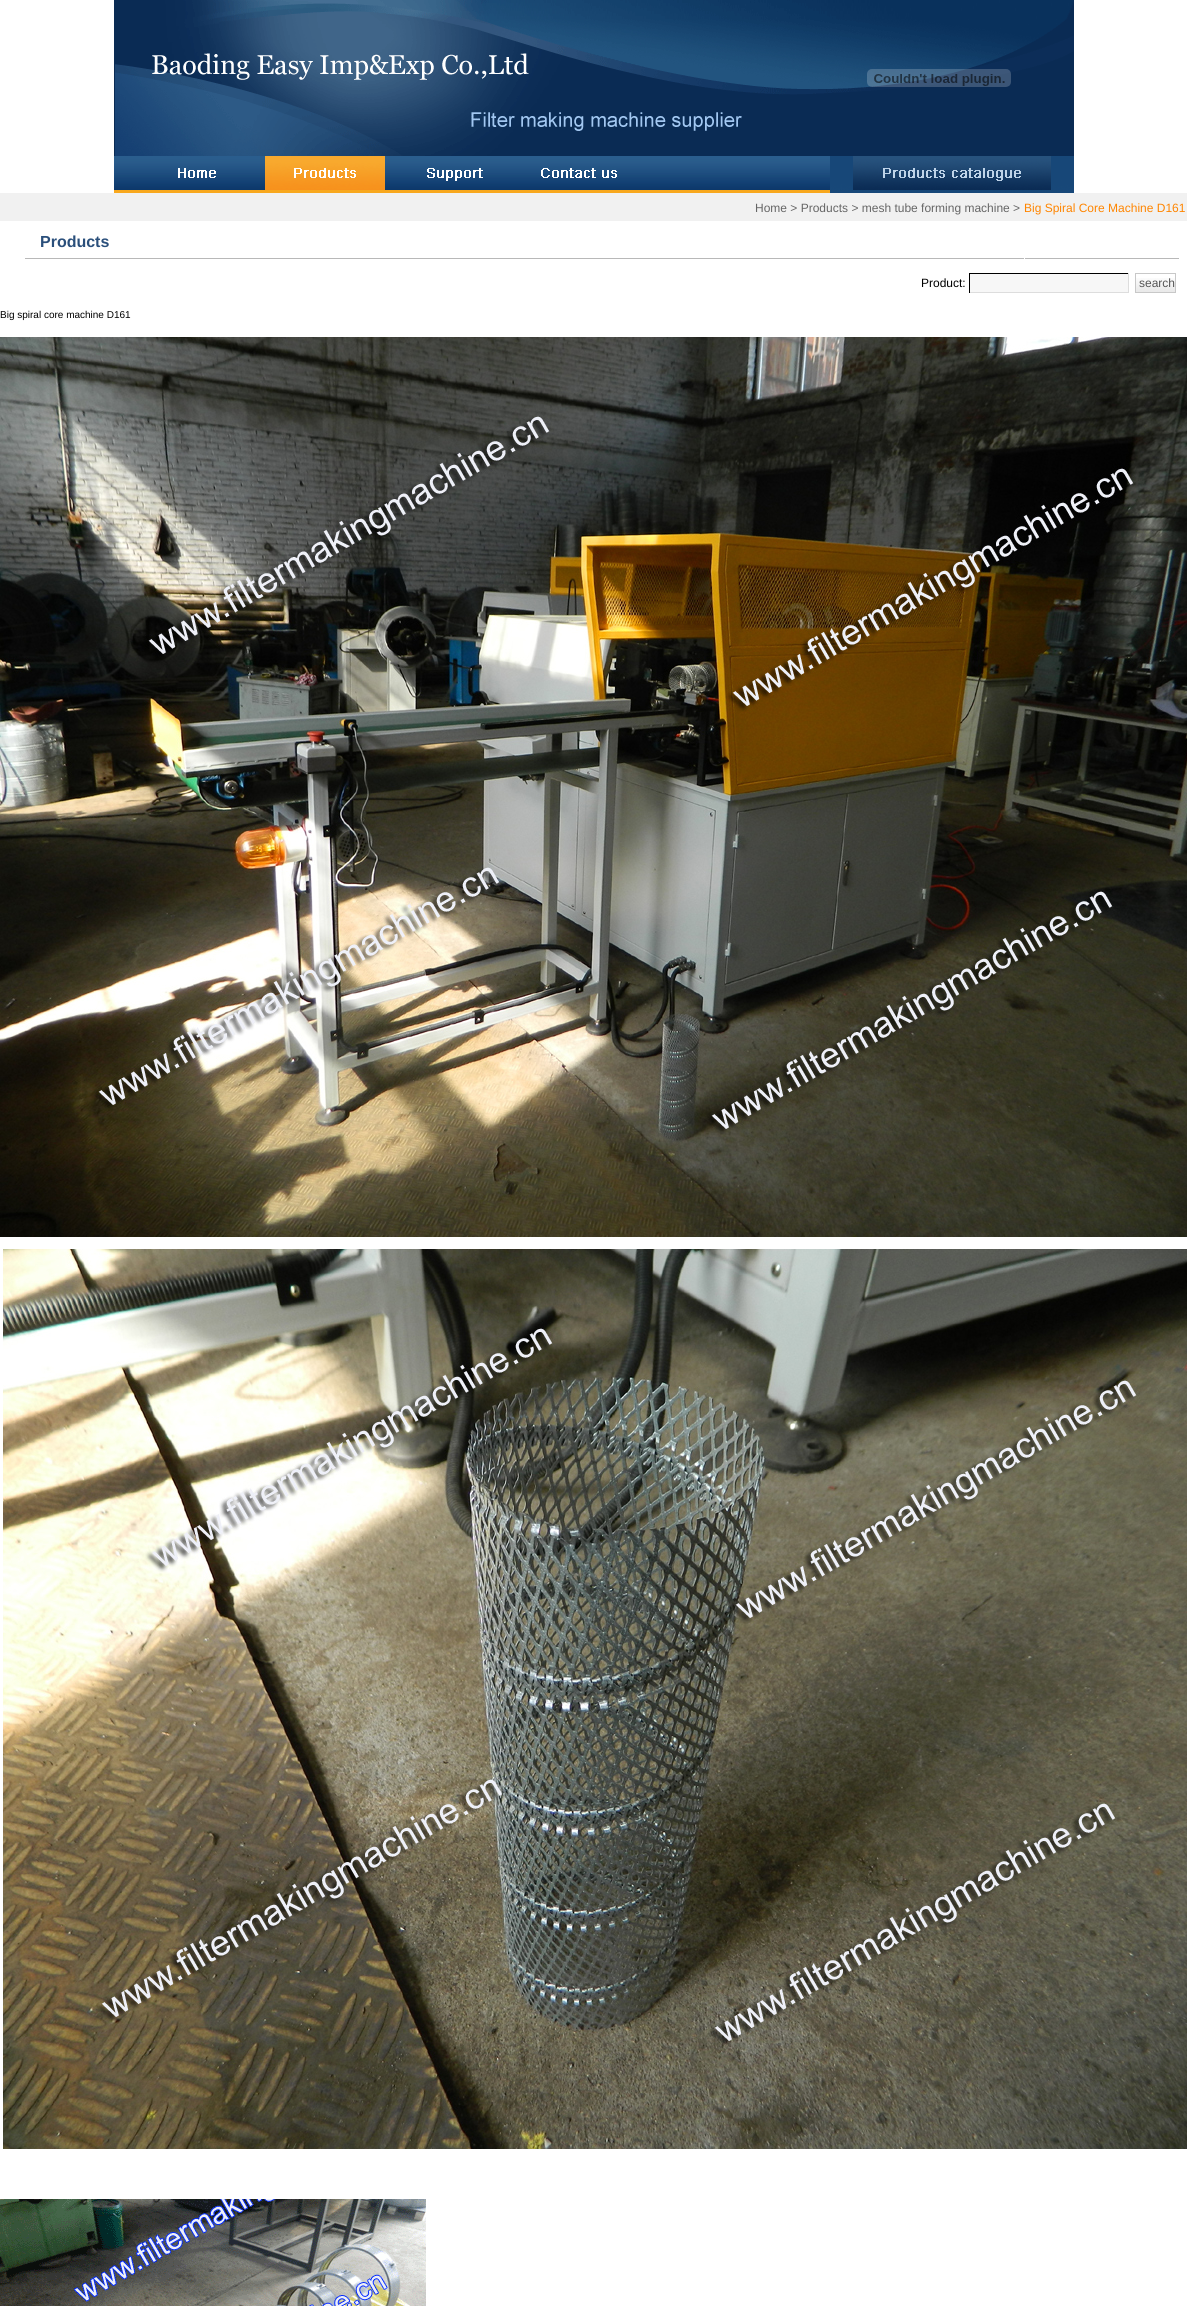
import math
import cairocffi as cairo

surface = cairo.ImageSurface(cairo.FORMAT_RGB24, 1187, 2306)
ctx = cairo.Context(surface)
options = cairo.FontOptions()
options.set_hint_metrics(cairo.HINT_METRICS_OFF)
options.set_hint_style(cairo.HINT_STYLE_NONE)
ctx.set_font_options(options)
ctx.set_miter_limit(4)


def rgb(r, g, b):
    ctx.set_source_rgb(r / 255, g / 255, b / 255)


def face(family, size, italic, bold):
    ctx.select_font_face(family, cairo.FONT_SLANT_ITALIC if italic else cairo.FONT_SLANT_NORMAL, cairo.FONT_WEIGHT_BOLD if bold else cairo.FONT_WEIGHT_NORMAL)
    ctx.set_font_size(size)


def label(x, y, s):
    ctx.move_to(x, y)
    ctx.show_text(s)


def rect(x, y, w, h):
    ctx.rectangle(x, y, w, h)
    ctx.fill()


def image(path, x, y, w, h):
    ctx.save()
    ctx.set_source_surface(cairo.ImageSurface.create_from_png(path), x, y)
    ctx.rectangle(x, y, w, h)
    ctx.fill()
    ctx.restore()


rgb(255, 255, 255)
ctx.paint()
image('image0.png', 114, 0, 960, 156)
image('image1.png', 867, 69, 144, 18)
image('image2.png', 114, 156, 716, 34)
image('image3.png', 178, 168, 38, 10)
image('image4.png', 265, 156, 120, 34)
image('image5.png', 427, 168, 56, 13)
image('image6.png', 541, 168, 76, 10)
rgb(248, 168, 30)
rect(114, 190, 716, 3)
image('image7.png', 830, 156, 244, 37)
rgb(241, 241, 241)
rect(0, 193, 1187, 28)
face('Liberation Sans', 12, 0, 0)
rgb(102, 102, 102)
label(755, 212, 'Home > Products > mesh tube forming machine >')
rgb(255, 133, 0)
label(1024, 212, 'Big Spiral Core Machine D161')
image('image8.png', 25, 258, 1154, 1)
face('Liberation Sans', 16, 0, 1)
rgb(42, 79, 123)
label(40, 247, 'Products')
face('Liberation Sans', 12, 0, 0)
rgb(0, 0, 0)
label(921, 287, 'Product:')
rgb(247, 247, 247)
rect(970, 274, 158, 18)
rgb(0, 0, 0)
rect(969, 273, 160, 1)
rgb(221, 221, 221)
rect(1128, 273, 1, 20)
rect(969, 292, 160, 1)
rgb(0, 0, 0)
rect(969, 273, 1, 20)
image('image9.png', 1136, 278, 39, 14)
ctx.rectangle(1135.5, 273.5, 40, 19)
rgb(200, 200, 200)
ctx.set_line_width(1)
ctx.stroke()
rgb(85, 85, 85)
label(1139, 287, 'search')
face('Liberation Sans', 10, 0, 0)
rgb(0, 0, 0)
label(0, 318, 'Big spiral core machine D161')
image('image10.png', 0, 337, 1187, 900)
image('image11.png', 3, 1249, 1184, 900)
image('image12.png', 0, 2199, 426, 107)
surface.write_to_png('render.png')
